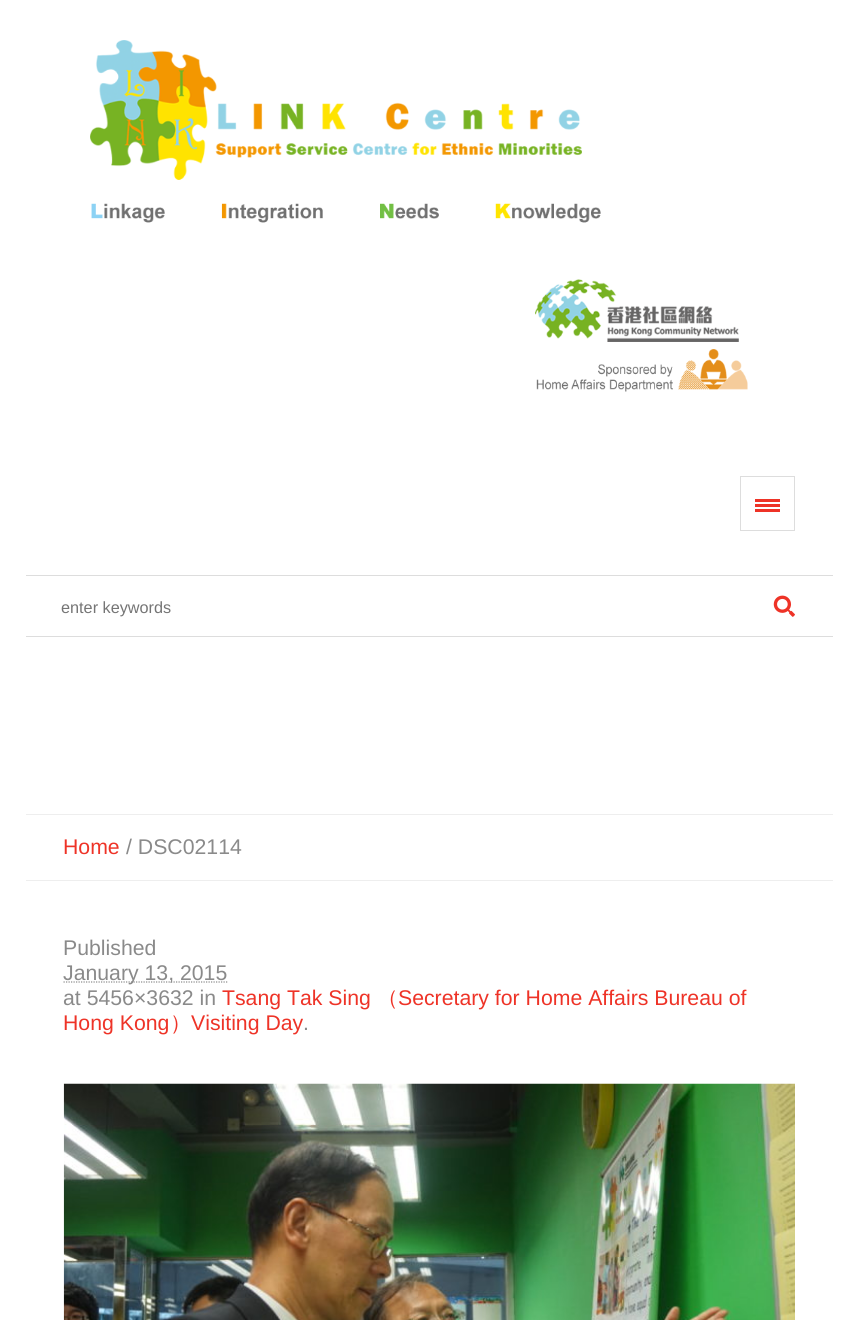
import math
import cairocffi as cairo

surface = cairo.ImageSurface(cairo.FORMAT_RGB24, 858, 1320)
ctx = cairo.Context(surface)
options = cairo.FontOptions()
options.set_hint_metrics(cairo.HINT_METRICS_OFF)
options.set_hint_style(cairo.HINT_STYLE_NONE)
ctx.set_font_options(options)
ctx.set_miter_limit(4)


def rgb(r, g, b):
    ctx.set_source_rgb(r / 255, g / 255, b / 255)


def face(family, size, italic, bold):
    ctx.select_font_face(family, cairo.FONT_SLANT_ITALIC if italic else cairo.FONT_SLANT_NORMAL, cairo.FONT_WEIGHT_BOLD if bold else cairo.FONT_WEIGHT_NORMAL)
    ctx.set_font_size(size)


def label(x, y, s):
    ctx.move_to(x, y)
    ctx.show_text(s)


def rect(x, y, w, h):
    ctx.rectangle(x, y, w, h)
    ctx.fill()


def image(path, x, y, w, h):
    ctx.save()
    ctx.set_source_surface(cairo.ImageSurface.create_from_png(path), x, y)
    ctx.rectangle(x, y, w, h)
    ctx.fill()
    ctx.restore()


rgb(255, 255, 255)
ctx.paint()
image('image0.png', 90, 40, 511, 183)
image('image1.png', 535, 279, 213, 113)
ctx.rectangle(740.5, 476.5, 54, 54)
rgb(221, 221, 221)
ctx.set_line_width(1)
ctx.stroke()
rgb(238, 51, 39)
rect(755, 499, 25, 3)
rect(755, 504, 25, 3)
rect(755, 509, 25, 3)
rgb(221, 221, 221)
rect(26, 575, 807, 1)
rect(26, 636, 807, 1)
face('Liberation Sans', 16.25, 0, 0)
rgb(117, 117, 117)
label(61, 613, 'enter keywords')
image('image2.png', 773, 595, 22, 22)
rgb(238, 238, 238)
rect(26, 814, 807, 1)
face('Liberation Sans', 21.25, 0, 0)
rgb(238, 51, 39)
label(63, 854, 'Home')
rgb(138, 138, 138)
label(126, 854, '/ DSC02114')
rgb(238, 238, 238)
rect(26, 880, 807, 1)
rgb(138, 138, 138)
label(63, 955, 'Published')
ctx.new_path()
ctx.move_to(63.5, 982)
ctx.line_to(227.5, 982)
ctx.set_line_width(1.2)
ctx.set_dash([1.25, 1.25])
ctx.stroke()
label(63, 980, 'January 13, 2015')
label(63, 1005, 'at 5456×3632 in')
rgb(238, 51, 39)
label(222, 1005, 'Tsang Tak Sing')
face('WenQuanYi Zen Hei Medium', 21.25, 0, 0)
label(377, 1005, '（')
face('Liberation Sans', 21.25, 0, 0)
label(398, 1005, 'Secretary for Home Affairs Bureau of')
label(63, 1030, 'Hong Kong')
face('WenQuanYi Zen Hei Medium', 21.25, 0, 0)
label(170, 1030, '）')
face('Liberation Sans', 21.25, 0, 0)
label(191, 1030, 'Visiting Day')
rgb(138, 138, 138)
label(303, 1030, '.')
image('image3.png', 63, 1083, 732, 237)
surface.write_to_png('render.png')
